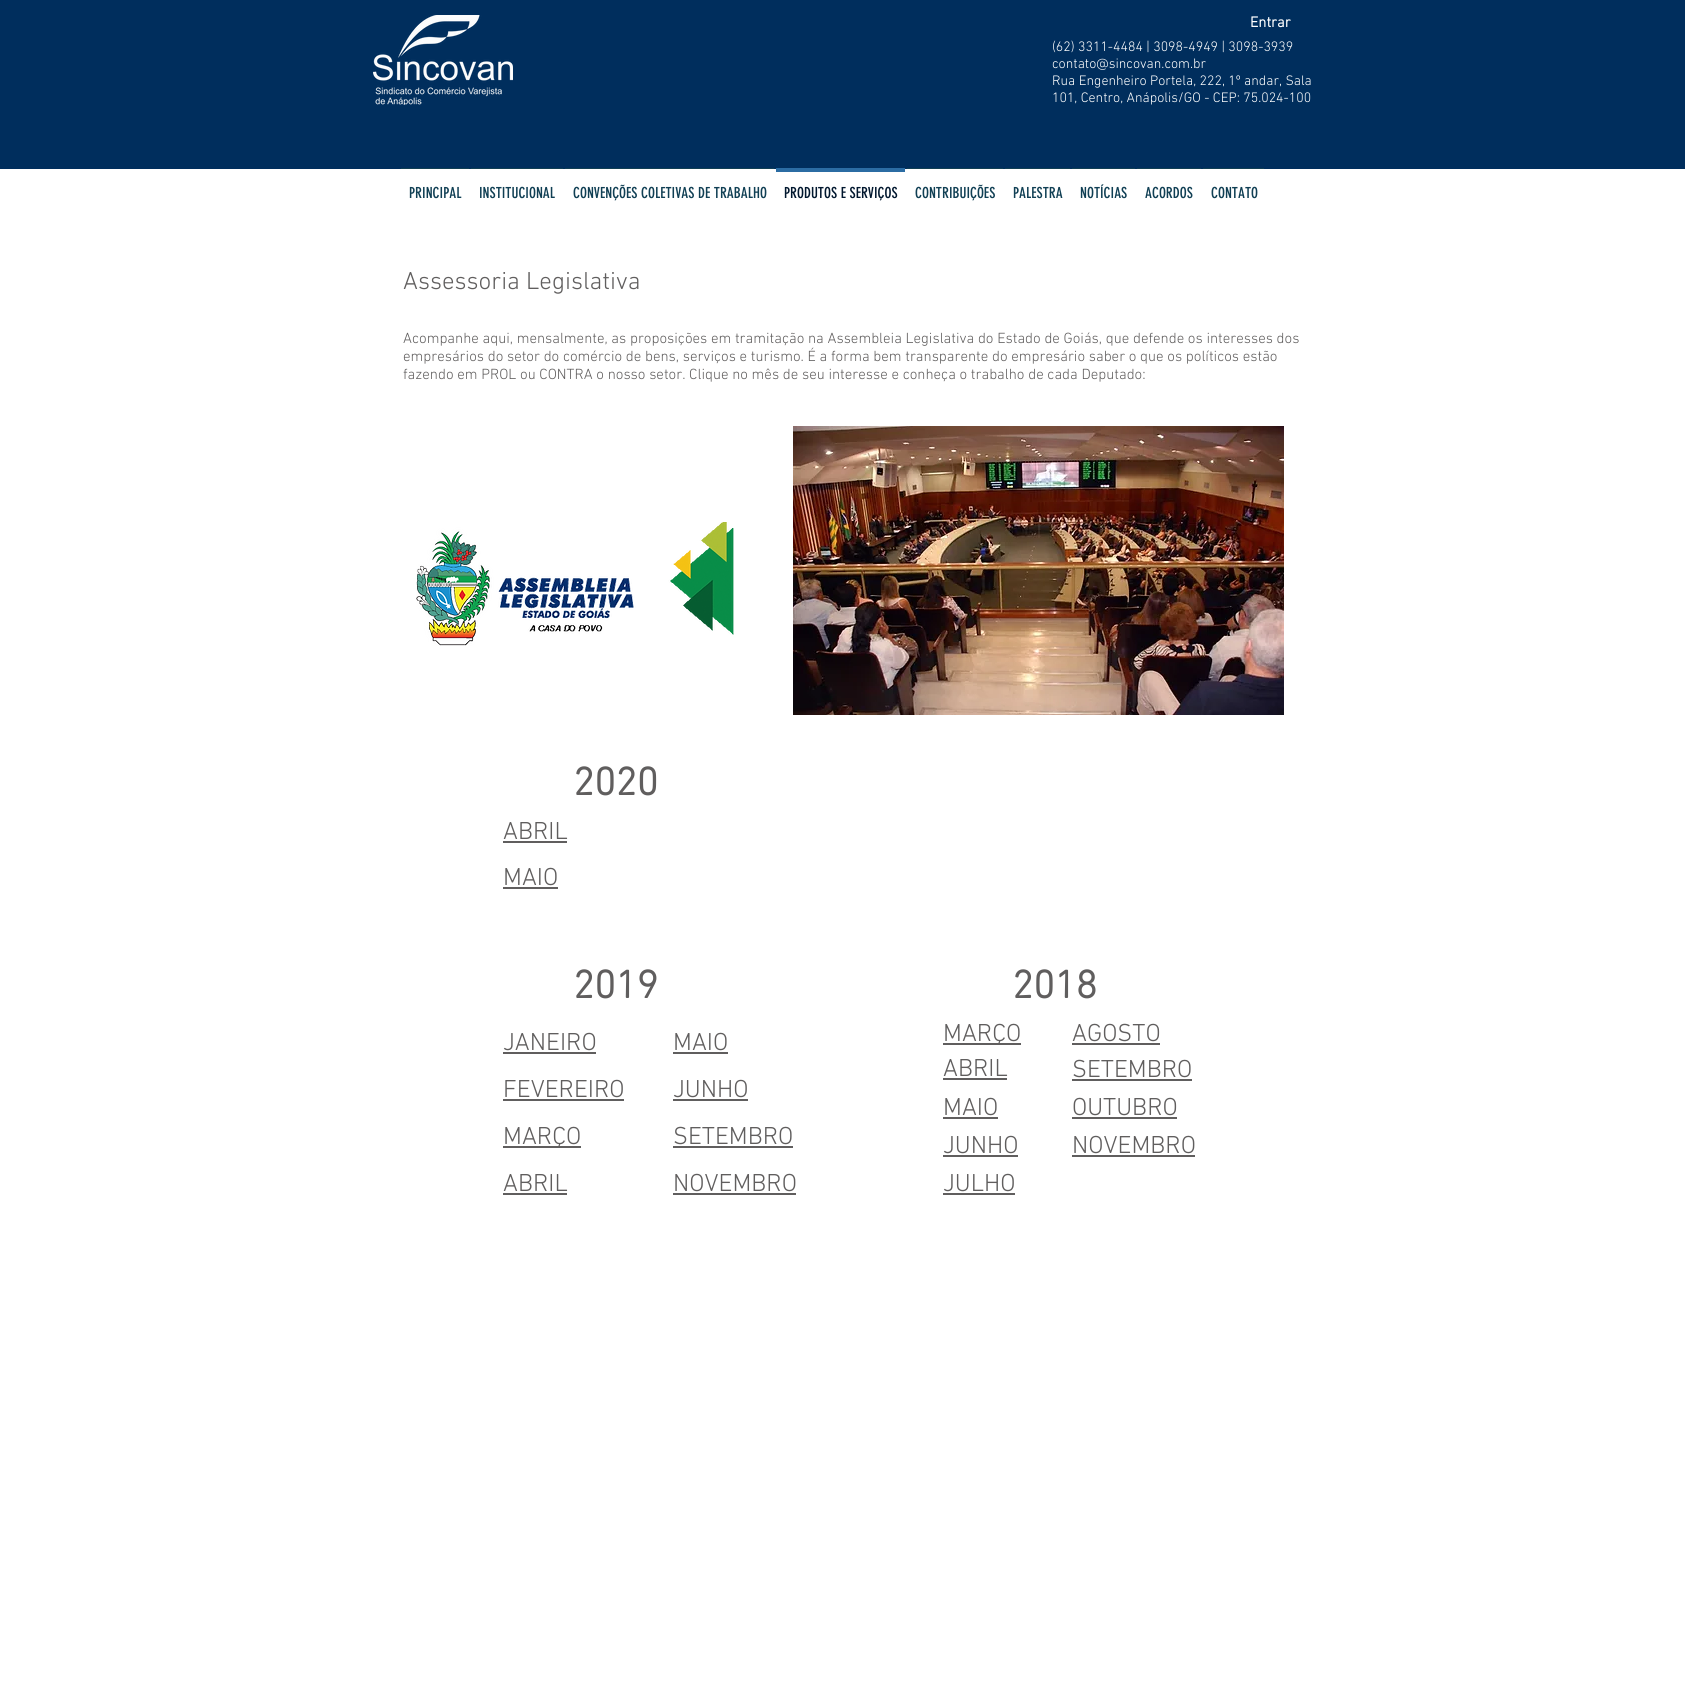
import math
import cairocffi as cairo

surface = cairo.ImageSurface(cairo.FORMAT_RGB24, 1685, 1704)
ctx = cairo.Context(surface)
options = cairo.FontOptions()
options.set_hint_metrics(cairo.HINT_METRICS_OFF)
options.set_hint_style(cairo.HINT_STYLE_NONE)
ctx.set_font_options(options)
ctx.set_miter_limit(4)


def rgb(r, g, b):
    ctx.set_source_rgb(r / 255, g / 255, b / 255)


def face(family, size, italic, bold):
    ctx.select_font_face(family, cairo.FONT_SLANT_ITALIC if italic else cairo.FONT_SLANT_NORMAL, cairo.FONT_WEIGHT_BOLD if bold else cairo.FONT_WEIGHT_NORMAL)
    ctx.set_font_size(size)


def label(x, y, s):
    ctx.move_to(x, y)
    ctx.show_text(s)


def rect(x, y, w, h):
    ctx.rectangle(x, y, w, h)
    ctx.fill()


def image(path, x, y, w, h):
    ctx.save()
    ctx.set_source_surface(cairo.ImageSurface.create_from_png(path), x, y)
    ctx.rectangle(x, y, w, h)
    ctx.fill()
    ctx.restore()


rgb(255, 255, 255)
ctx.paint()
rgb(0, 46, 93)
rect(0, 0, 1685, 169)
image('image0.png', 373, 15, 140, 90)
face('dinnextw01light', 15, 0, 1)
rgb(255, 255, 255)
label(1250, 27, 'Entrar')
face('dinnextw01light Light', 14, 0, 0)
label(1052, 51, '(62) 3311-4484 | 3098-4949 | 3098-3939')
label(1052, 68, 'contato@sincovan.com.br')
label(1052, 85, 'Rua Engenheiro Portela, 222, 1º andar, Sala')
label(1052, 102, '101, Centro, Anápolis/GO - CEP: 75.024-100')
rgb(16, 63, 84)
rect(401, 168, 68, 1)
face('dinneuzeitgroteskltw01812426', 15, 0, 0)
label(409, 198, 'PRINCIPAL')
rect(471, 168, 92, 1)
label(479, 198, 'INSTITUCIONAL')
rect(565, 168, 209, 1)
label(573, 198, 'CONVENÇÕES COLETIVAS DE TRABALHO')
rgb(43, 108, 163)
rect(776, 168, 129, 4)
rgb(1, 23, 46)
label(784, 198, 'PRODUTOS E SERVIÇOS')
rgb(16, 63, 84)
rect(907, 168, 96, 1)
label(915, 198, 'CONTRIBUIÇÕES')
rect(1005, 168, 65, 1)
label(1013, 198, 'PALESTRA')
rect(1072, 168, 63, 1)
label(1080, 198, 'NOTÍCIAS')
rect(1137, 168, 64, 1)
label(1145, 198, 'ACORDOS')
rect(1203, 168, 61, 1)
label(1211, 198, 'CONTATO')
face('dinnextw01light Light', 25, 0, 0)
rgb(96, 94, 94)
label(403, 289, 'Assessoria Legislativa')
face('dinnextw01light Light', 15, 0, 0)
label(403, 343, 'Acompanhe aqui, mensalmente, as proposições em tramitação na Assembleia Legislativa do Estado de Goiás, que defende os interesses dos')
label(403, 361, 'empresários do setor do comércio de bens, serviços e turismo. É a forma bem transparente do empresário saber o que os políticos estão')
label(403, 379, 'fazendo em PROL ou CONTRA o nosso setor. Clique no mês de seu interesse e conheça o trabalho de cada Deputado:')
image('image1.png', 416, 522, 318, 124)
image('image2.png', 793, 426, 491, 289)
face('dinnextw01light', 40, 0, 1)
label(573, 795, '2020')
face('dinnextw01light Light', 25, 0, 0)
label(503, 839, 'ABRIL')
rect(503, 841, 64, 2)
label(503, 885, 'MAIO')
rect(503, 887, 55, 2)
face('dinnextw01light', 40, 0, 1)
label(573, 998, '2019')
label(1012, 998, '2018')
face('dinnextw01light Light', 25, 0, 0)
label(503, 1050, 'JANEIRO')
rect(503, 1052, 93, 2)
label(673, 1050, 'MAIO')
rect(673, 1052, 55, 2)
rect(943, 1043, 78, 2)
label(943, 1041, 'MARÇO')
label(1072, 1041, 'AGOSTO')
rect(1072, 1043, 88, 2)
label(943, 1076, 'ABRIL')
rect(943, 1078, 64, 2)
label(1072, 1077, 'SETEMBRO')
rect(1072, 1079, 120, 2)
label(503, 1097, 'FEVEREIRO')
rect(503, 1099, 121, 2)
label(673, 1097, 'JUNHO')
rect(673, 1099, 75, 2)
label(943, 1115, 'MAIO')
rect(943, 1117, 55, 2)
label(1072, 1115, 'OUTUBRO')
rect(1072, 1117, 105, 2)
rect(503, 1146, 78, 2)
label(503, 1144, 'MARÇO')
label(673, 1144, 'SETEMBRO')
rect(673, 1146, 120, 2)
label(943, 1153, 'JUNHO')
rect(943, 1155, 75, 2)
label(1072, 1153, 'NOVEMBRO')
rect(1072, 1155, 123, 2)
label(503, 1191, 'ABRIL')
rect(503, 1193, 64, 2)
label(673, 1191, 'NOVEMBRO')
rect(673, 1193, 123, 2)
label(943, 1191, 'JULHO')
rect(943, 1193, 72, 2)
surface.write_to_png('render.png')
